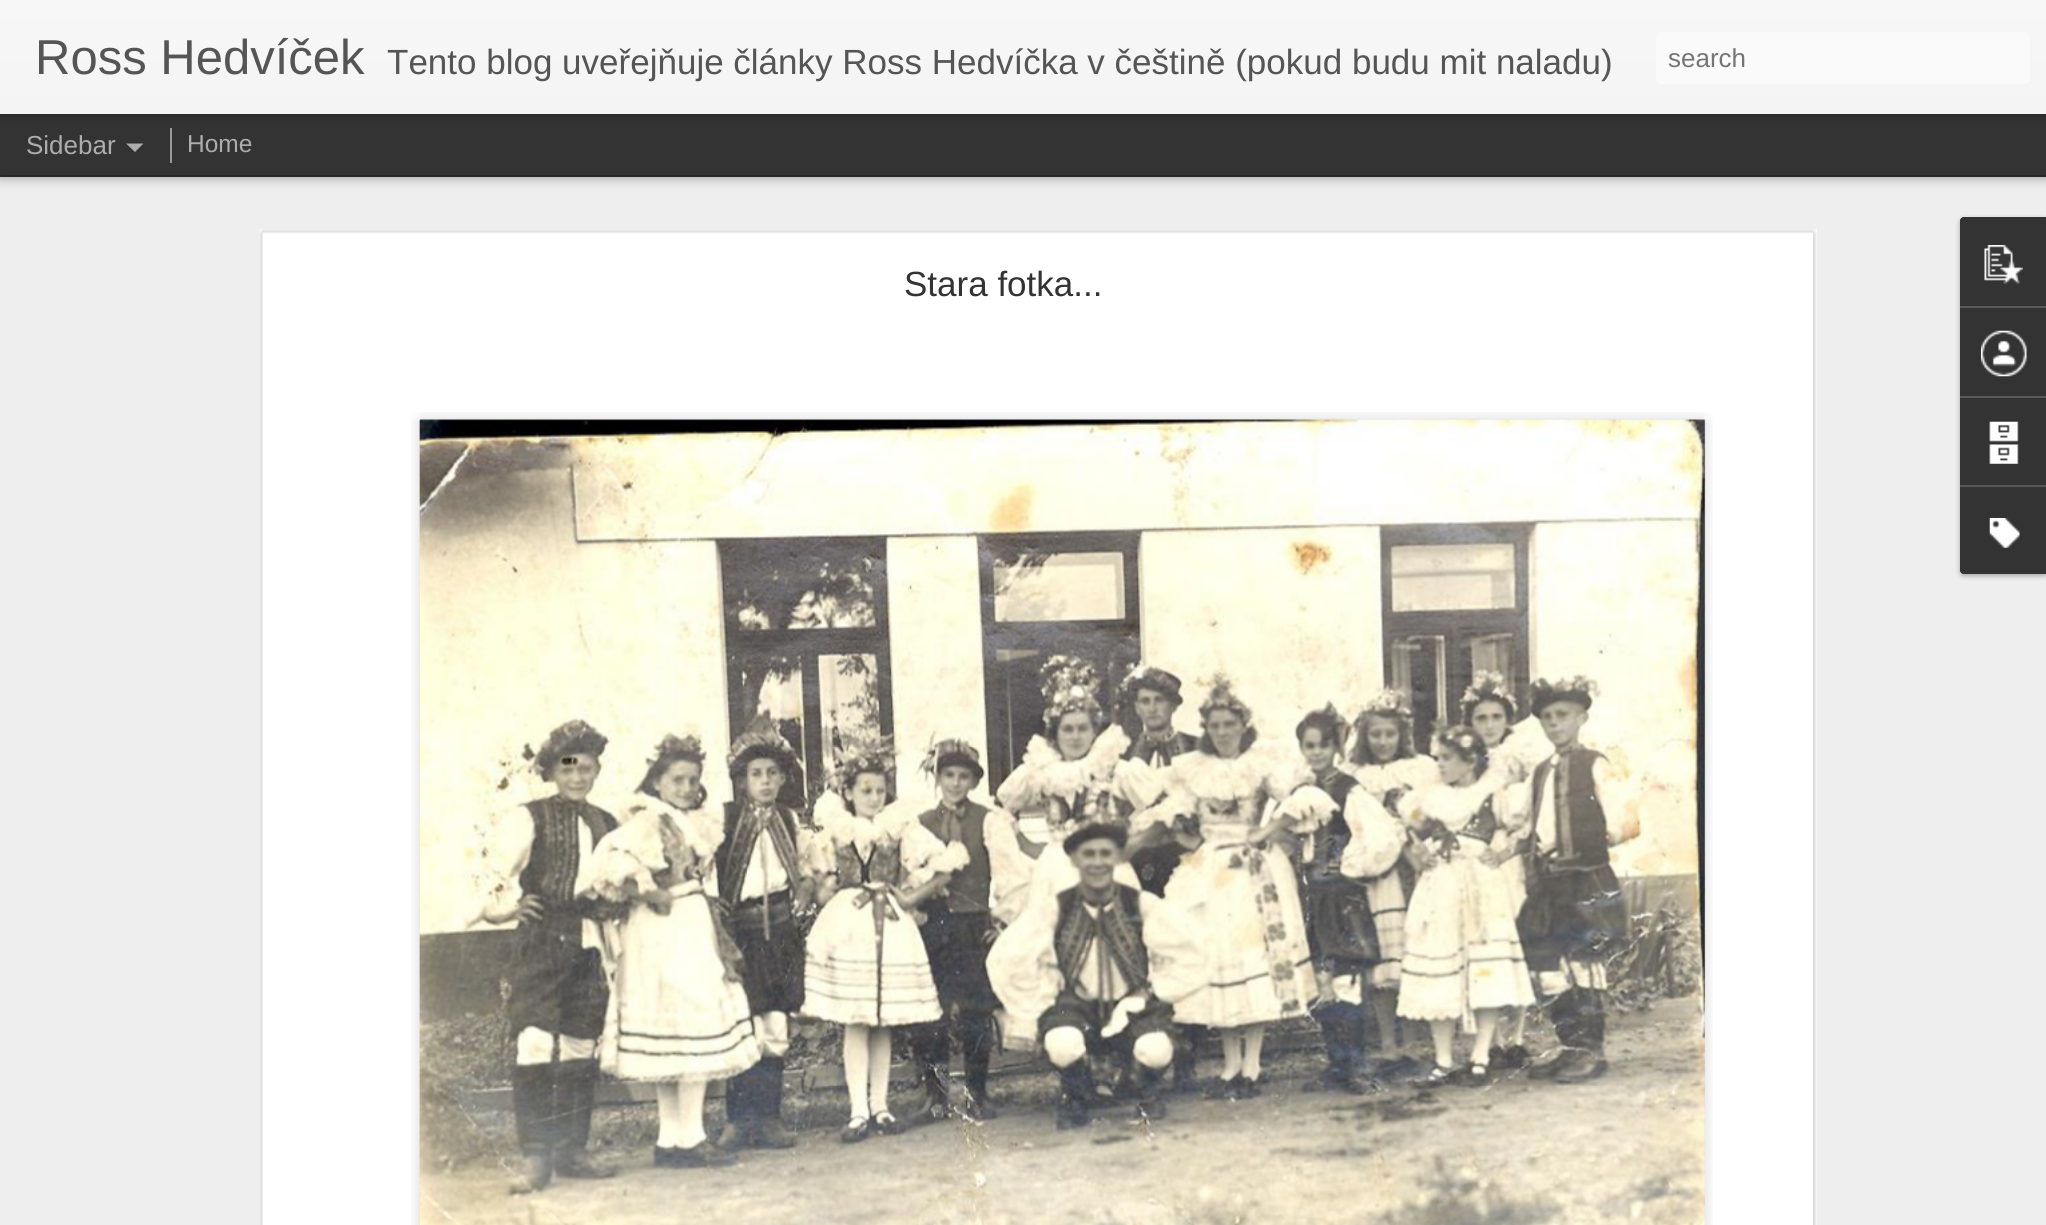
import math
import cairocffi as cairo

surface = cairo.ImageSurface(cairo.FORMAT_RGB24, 2046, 1225)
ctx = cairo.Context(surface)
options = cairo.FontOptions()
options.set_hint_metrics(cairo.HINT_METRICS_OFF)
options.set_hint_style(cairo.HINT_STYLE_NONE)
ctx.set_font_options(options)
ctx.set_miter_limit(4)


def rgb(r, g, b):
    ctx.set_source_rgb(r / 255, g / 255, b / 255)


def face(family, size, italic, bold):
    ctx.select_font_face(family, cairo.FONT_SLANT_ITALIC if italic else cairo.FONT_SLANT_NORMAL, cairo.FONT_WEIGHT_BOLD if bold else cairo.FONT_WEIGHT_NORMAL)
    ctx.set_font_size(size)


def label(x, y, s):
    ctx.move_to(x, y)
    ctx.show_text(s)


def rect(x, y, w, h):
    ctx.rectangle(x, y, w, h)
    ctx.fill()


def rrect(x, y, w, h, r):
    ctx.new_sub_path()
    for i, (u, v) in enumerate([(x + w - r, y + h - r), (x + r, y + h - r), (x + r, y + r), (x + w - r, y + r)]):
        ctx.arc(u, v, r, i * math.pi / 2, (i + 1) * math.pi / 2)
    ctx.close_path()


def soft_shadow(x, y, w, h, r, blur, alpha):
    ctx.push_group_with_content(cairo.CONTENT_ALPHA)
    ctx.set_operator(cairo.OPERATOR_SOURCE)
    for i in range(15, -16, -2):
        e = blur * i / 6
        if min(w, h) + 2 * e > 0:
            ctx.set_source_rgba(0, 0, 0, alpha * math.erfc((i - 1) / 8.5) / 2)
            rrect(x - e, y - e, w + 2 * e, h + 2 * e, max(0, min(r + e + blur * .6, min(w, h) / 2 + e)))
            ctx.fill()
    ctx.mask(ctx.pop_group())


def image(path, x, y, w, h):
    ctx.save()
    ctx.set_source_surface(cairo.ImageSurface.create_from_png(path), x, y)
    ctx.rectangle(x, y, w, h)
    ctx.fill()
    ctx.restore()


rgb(51, 51, 51)
ctx.paint()
rgb(238, 238, 238)
rect(0, 177, 2046, 1048)
rgb(0, 0, 0)
soft_shadow(0, 114, 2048, 61, 0, 7, 0.5)
rgb(51, 51, 51)
rect(0, 114, 2046, 61)
rgb(153, 153, 153)
rect(170, 128, 2, 35)
rgb(0, 0, 0)
soft_shadow(0, 0, 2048, 114, 0, 4.5, 0.3)
gradient = cairo.LinearGradient(0, 0, 0, 114)
gradient.add_color_stop_rgba(0, 0.969, 0.969, 0.969, 1)
gradient.add_color_stop_rgba(1, 0.957, 0.957, 0.957, 1)
ctx.set_source(gradient)
rect(0, 0, 2046, 114)
face('Liberation Sans', 49, 0, 0)
rgb(85, 85, 85)
label(35, 74, 'Ross Hedvíček')
face('Liberation Sans', 35, 0, 0)
label(387, 74, 'Tento blog uveřejňuje články Ross Hedvíčka v češtině (pokud budu mit naladu)')
rgb(250, 250, 250)
rrect(1656, 32, 374, 52, 5)
ctx.fill()
face('Liberation Sans', 26, 0, 0)
rgb(117, 117, 117)
label(1668, 67, 'search')
rgb(173, 173, 173)
label(26, 154, 'Sidebar')
ctx.new_path()
ctx.move_to(126, 143.5)
ctx.line_to(143.5, 143.5)
ctx.line_to(135, 152)
ctx.close_path()
ctx.fill()
face('Liberation Sans', 24.5, 0, 0)
label(187, 152, 'Home')
rgb(255, 255, 255)
rect(259, 229, 1558, 996)
image('image0.png', 259, 229, 1558, 996)
face('Liberation Sans', 35, 0, 0)
rgb(51, 51, 51)
label(904, 296, 'Stara fotka...')
image('image1.png', 411, 412, 1302, 813)
image('image2.png', 419, 419, 1287, 806)
rgb(0, 0, 0)
soft_shadow(1960, 219, 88, 357, 4, 2.5, 0.3)
rgb(51, 51, 51)
ctx.new_path()
ctx.move_to(1964, 217)
ctx.line_to(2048, 217)
ctx.line_to(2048, 574)
ctx.line_to(1964, 574)
ctx.curve_to(1962, 574, 1960, 572, 1960, 570)
ctx.line_to(1960, 221)
ctx.curve_to(1960, 219, 1962, 217, 1964, 217)
ctx.close_path()
ctx.fill()
ctx.new_path()
ctx.move_to(1964, 217)
ctx.line_to(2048, 217)
ctx.line_to(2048, 306)
ctx.line_to(1960, 306)
ctx.line_to(1960, 221)
ctx.curve_to(1960, 219, 1962, 217, 1964, 217)
ctx.close_path()
ctx.fill()
image('image3.png', 1984, 245, 39, 39)
rgb(88, 88, 88)
rect(1960, 306, 86, 2)
image('image4.png', 1981, 330, 46, 47)
rect(1960, 396, 86, 2)
image('image5.png', 1989, 421, 30, 43)
rgb(51, 51, 51)
ctx.new_path()
ctx.move_to(1960, 485)
ctx.line_to(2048, 485)
ctx.line_to(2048, 574)
ctx.line_to(1964, 574)
ctx.curve_to(1962, 574, 1960, 572, 1960, 570)
ctx.close_path()
ctx.fill()
rgb(88, 88, 88)
rect(1960, 485, 86, 2)
image('image6.png', 1989, 518, 31, 30)
surface.write_to_png('render.png')
